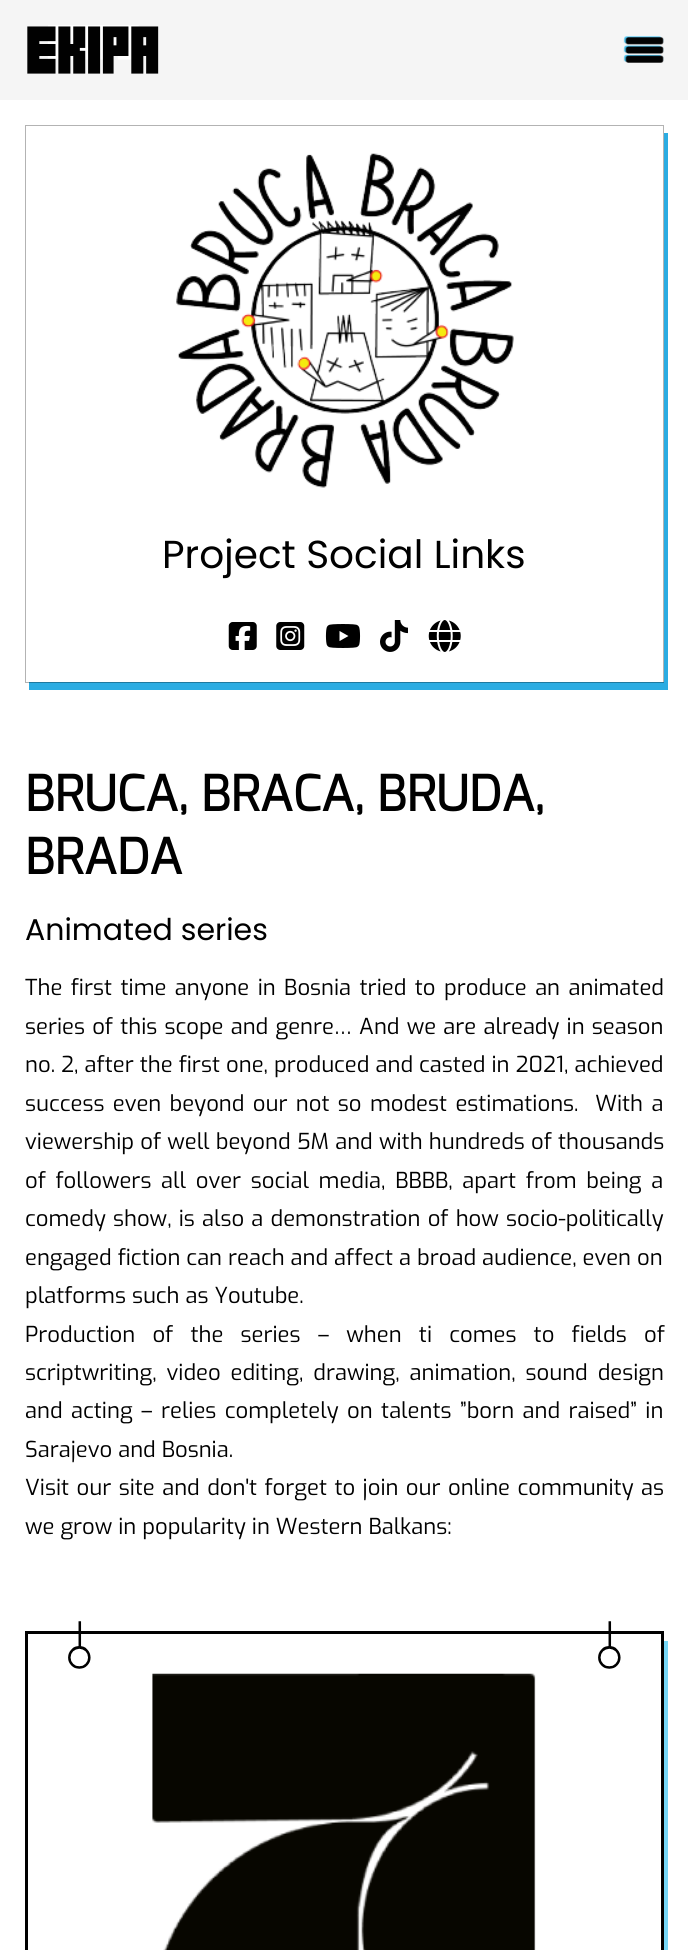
import math
import cairocffi as cairo

surface = cairo.ImageSurface(cairo.FORMAT_RGB24, 688, 1950)
ctx = cairo.Context(surface)
options = cairo.FontOptions()
options.set_hint_metrics(cairo.HINT_METRICS_OFF)
options.set_hint_style(cairo.HINT_STYLE_NONE)
ctx.set_font_options(options)
ctx.set_miter_limit(4)


def rgb(r, g, b):
    ctx.set_source_rgb(r / 255, g / 255, b / 255)


def face(family, size, italic, bold):
    ctx.select_font_face(family, cairo.FONT_SLANT_ITALIC if italic else cairo.FONT_SLANT_NORMAL, cairo.FONT_WEIGHT_BOLD if bold else cairo.FONT_WEIGHT_NORMAL)
    ctx.set_font_size(size)


def label(x, y, s):
    ctx.move_to(x, y)
    ctx.show_text(s)


def tracked(x, y, s, letter, word):
    ctx.move_to(x, y)
    for ch in s:
        ctx.show_text(ch)
        ctx.rel_move_to(letter + word * (ch == ' '), 0)


def rect(x, y, w, h):
    ctx.rectangle(x, y, w, h)
    ctx.fill()


def image(path, x, y, w, h):
    ctx.save()
    ctx.set_source_surface(cairo.ImageSurface.create_from_png(path), x, y)
    ctx.rectangle(x, y, w, h)
    ctx.fill()
    ctx.restore()


rgb(255, 255, 255)
ctx.paint()
rgb(245, 245, 245)
rect(0, 0, 688, 100)
image('image0.png', 27, 25, 132, 49)
image('image1.png', 623, 36, 41, 27)
rgb(43, 172, 226)
ctx.new_path()
ctx.move_to(29, 682)
ctx.line_to(29, 690)
ctx.line_to(668, 690)
ctx.line_to(668, 133)
ctx.line_to(664, 133)
ctx.line_to(664, 682)
ctx.close_path()
ctx.fill()
ctx.rectangle(25.5, 125.5, 638, 557)
ctx.set_source_rgba(0, 0, 0, 0.3)
ctx.set_line_width(1)
ctx.stroke()
image('image2.png', 176, 153, 338, 335)
face('Poppins', 39, 0, 0)
rgb(0, 0, 0)
label(162, 568, 'Project Social Links')
image('image3.png', 228, 622, 29, 28)
image('image4.png', 276, 622, 29, 28)
image('image5.png', 325, 624, 36, 24)
image('image6.png', 380, 620, 28, 32)
image('image7.png', 428, 620, 33, 32)
face('Exo', 48.75, 0, 1)
label(25, 811, 'BRUCA, BRACA, BRUDA,')
label(25, 874, 'BRADA')
face('Poppins', 30, 0, 0)
label(25, 940, 'Animated series')
face('Exo', 22, 0, 0)
tracked(25, 995, 'The first time anyone in Bosnia tried to produce an animated', 0, 2.5)
tracked(25, 1034, 'series of this scope and genre… And we are already in season', 0, 1.25)
tracked(25, 1072, 'no. 2, after the first one, produced and casted in 2021, achieved', 0, 0.1)
tracked(25, 1111, 'success even beyond our not so modest estimations.  With a', 0, 2.4)
tracked(25, 1149, 'viewership of well beyond 5M and with hundreds of thousands', 0, 0.25)
tracked(25, 1188, 'of followers all over social media, BBBB, apart from being a', 0, 3.75)
tracked(25, 1226, 'comedy show, is also a demonstration of how socio-politically', 0, 1.25)
label(25, 1265, 'engaged fiction can reach and affect a broad audience, even on')
label(25, 1303, 'platforms such as Youtube.')
tracked(25, 1342, 'Production of the series – when ti comes to fields of', 0, 11.25)
tracked(25, 1380, 'scriptwriting, video editing, drawing, animation, sound design', 0, 4)
tracked(25, 1418, 'and acting – relies completely on talents ”born and raised” in', 0, 2.5)
label(25, 1457, 'Sarajevo and Bosnia.')
tracked(25, 1495, 'Visit our site and don\'t forget to join our online community as', 0, 1.5)
label(25, 1534, 'we grow in popularity in Western Balkans:')
rgb(118, 215, 247)
ctx.new_path()
ctx.move_to(29, 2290)
ctx.line_to(29, 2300)
ctx.line_to(668, 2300)
ctx.line_to(668, 1641)
ctx.line_to(664, 1641)
ctx.line_to(664, 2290)
ctx.close_path()
ctx.fill()
ctx.rectangle(26.5, 1632.5, 636, 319)
rgb(0, 0, 0)
ctx.set_line_width(3)
ctx.stroke()
image('image8.png', 68, 1621, 23, 48)
image('image8.png', 598, 1621, 23, 48)
image('image9.png', 152, 1673, 384, 277)
surface.write_to_png('render.png')
